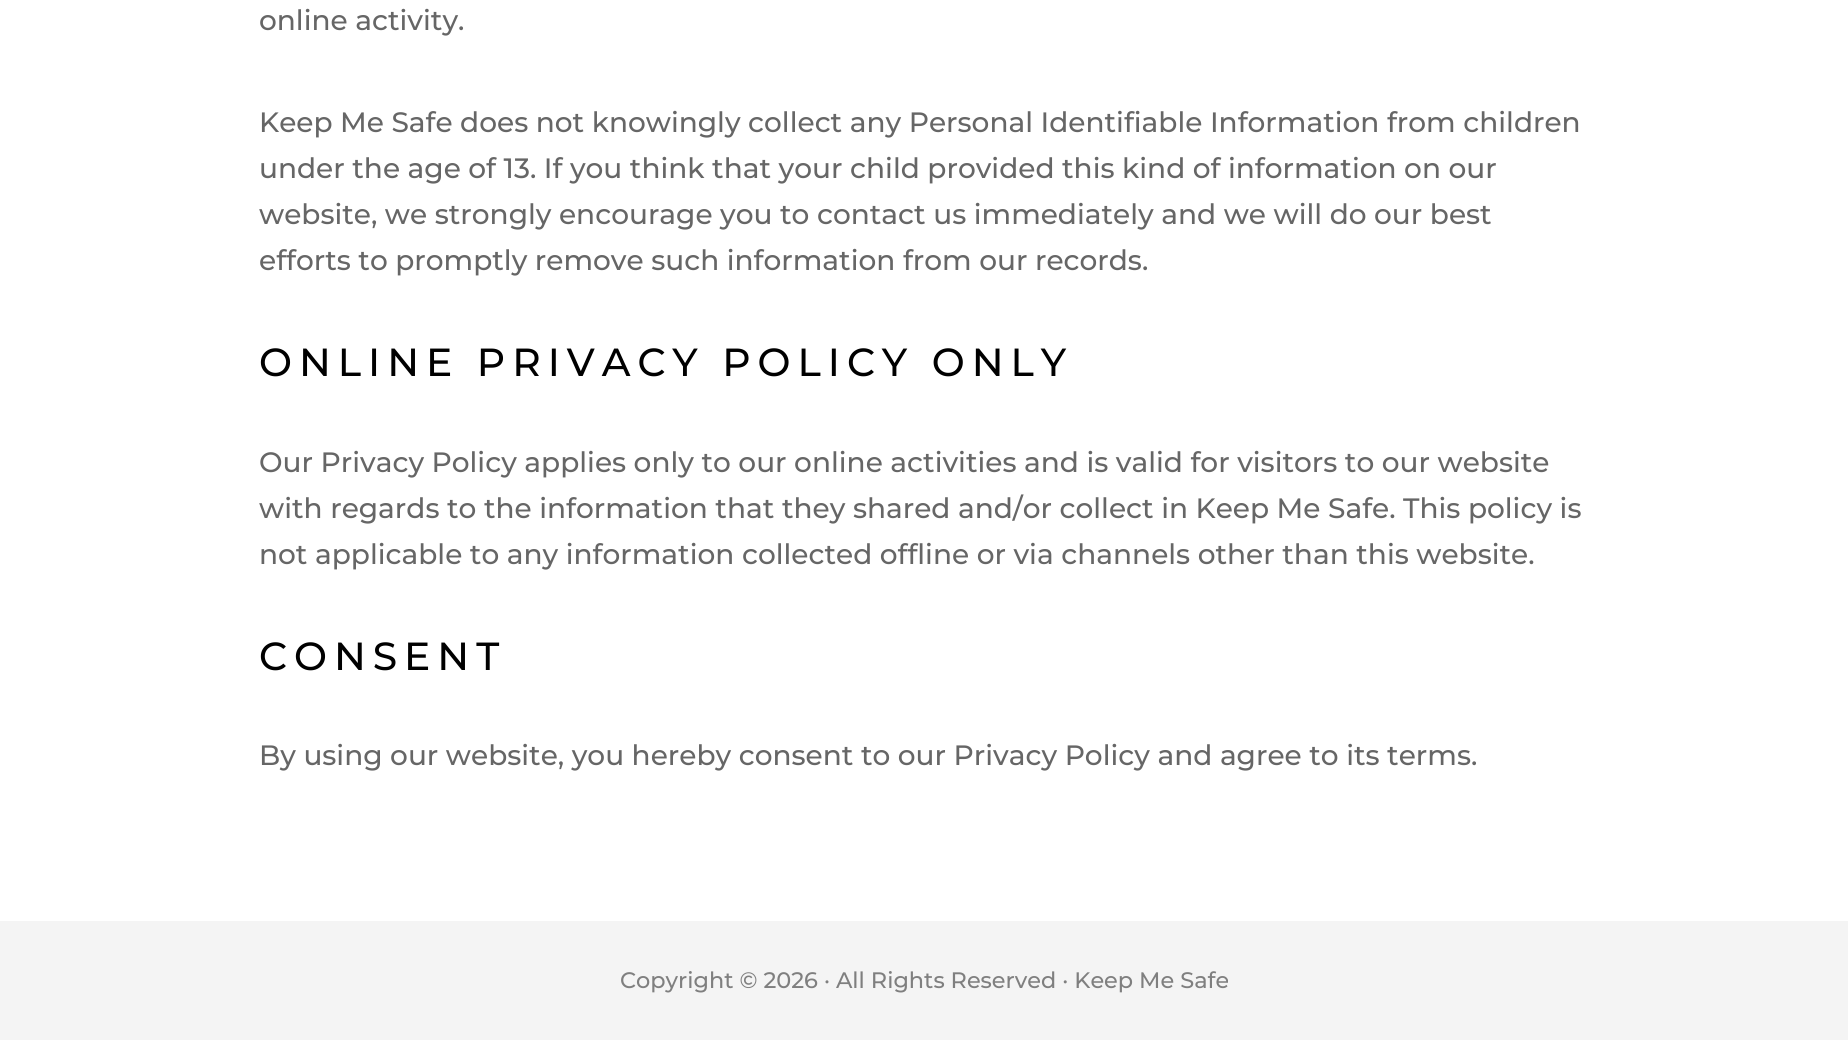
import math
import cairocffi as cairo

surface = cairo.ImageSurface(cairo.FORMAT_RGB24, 1848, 1040)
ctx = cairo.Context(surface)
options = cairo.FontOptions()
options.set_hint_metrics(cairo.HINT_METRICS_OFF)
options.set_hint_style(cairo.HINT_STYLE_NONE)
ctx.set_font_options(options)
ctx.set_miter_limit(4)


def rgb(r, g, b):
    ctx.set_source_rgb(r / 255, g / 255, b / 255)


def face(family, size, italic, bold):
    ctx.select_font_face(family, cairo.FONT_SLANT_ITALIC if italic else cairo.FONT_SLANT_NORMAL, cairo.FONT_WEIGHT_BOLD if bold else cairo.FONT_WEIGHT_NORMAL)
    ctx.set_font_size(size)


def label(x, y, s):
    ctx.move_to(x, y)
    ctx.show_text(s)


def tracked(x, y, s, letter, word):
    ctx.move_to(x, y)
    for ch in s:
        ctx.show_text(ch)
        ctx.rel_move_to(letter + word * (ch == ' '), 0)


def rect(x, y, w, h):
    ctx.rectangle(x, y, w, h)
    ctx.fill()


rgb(255, 255, 255)
ctx.paint()
face('Montserrat Thin', 28, 0, 0)
rgb(102, 102, 102)
label(259, 30, 'online activity.')
label(259, 132, 'Keep Me Safe does not knowingly collect any Personal Identifiable Information from children')
label(259, 178, 'under the age of 13. If you think that your child provided this kind of information on our')
label(259, 224, 'website, we strongly encourage you to contact us immediately and we will do our best')
label(259, 270, 'efforts to promptly remove such information from our records.')
face('Montserrat Thin', 39.2, 0, 0)
rgb(0, 0, 0)
tracked(259, 376, 'ONLINE PRIVACY POLICY ONLY', 7, 0)
face('Montserrat Thin', 28, 0, 0)
rgb(102, 102, 102)
label(259, 472, 'Our Privacy Policy applies only to our online activities and is valid for visitors to our website')
label(259, 518, 'with regards to the information that they shared and/or collect in Keep Me Safe. This policy is')
label(259, 564, 'not applicable to any information collected offline or via channels other than this website.')
face('Montserrat Thin', 39.2, 0, 0)
rgb(0, 0, 0)
tracked(259, 670, 'CONSENT', 7, 0)
face('Montserrat Thin', 28, 0, 0)
rgb(102, 102, 102)
label(259, 765, 'By using our website, you hereby consent to our Privacy Policy and agree to its terms.')
rgb(244, 244, 244)
rect(0, 921, 1848, 119)
face('Montserrat Thin', 22.4, 0, 0)
rgb(127, 127, 127)
label(620, 988, 'Copyright © 2026 · All Rights Reserved · Keep Me Safe')
surface.write_to_png('render.png')
